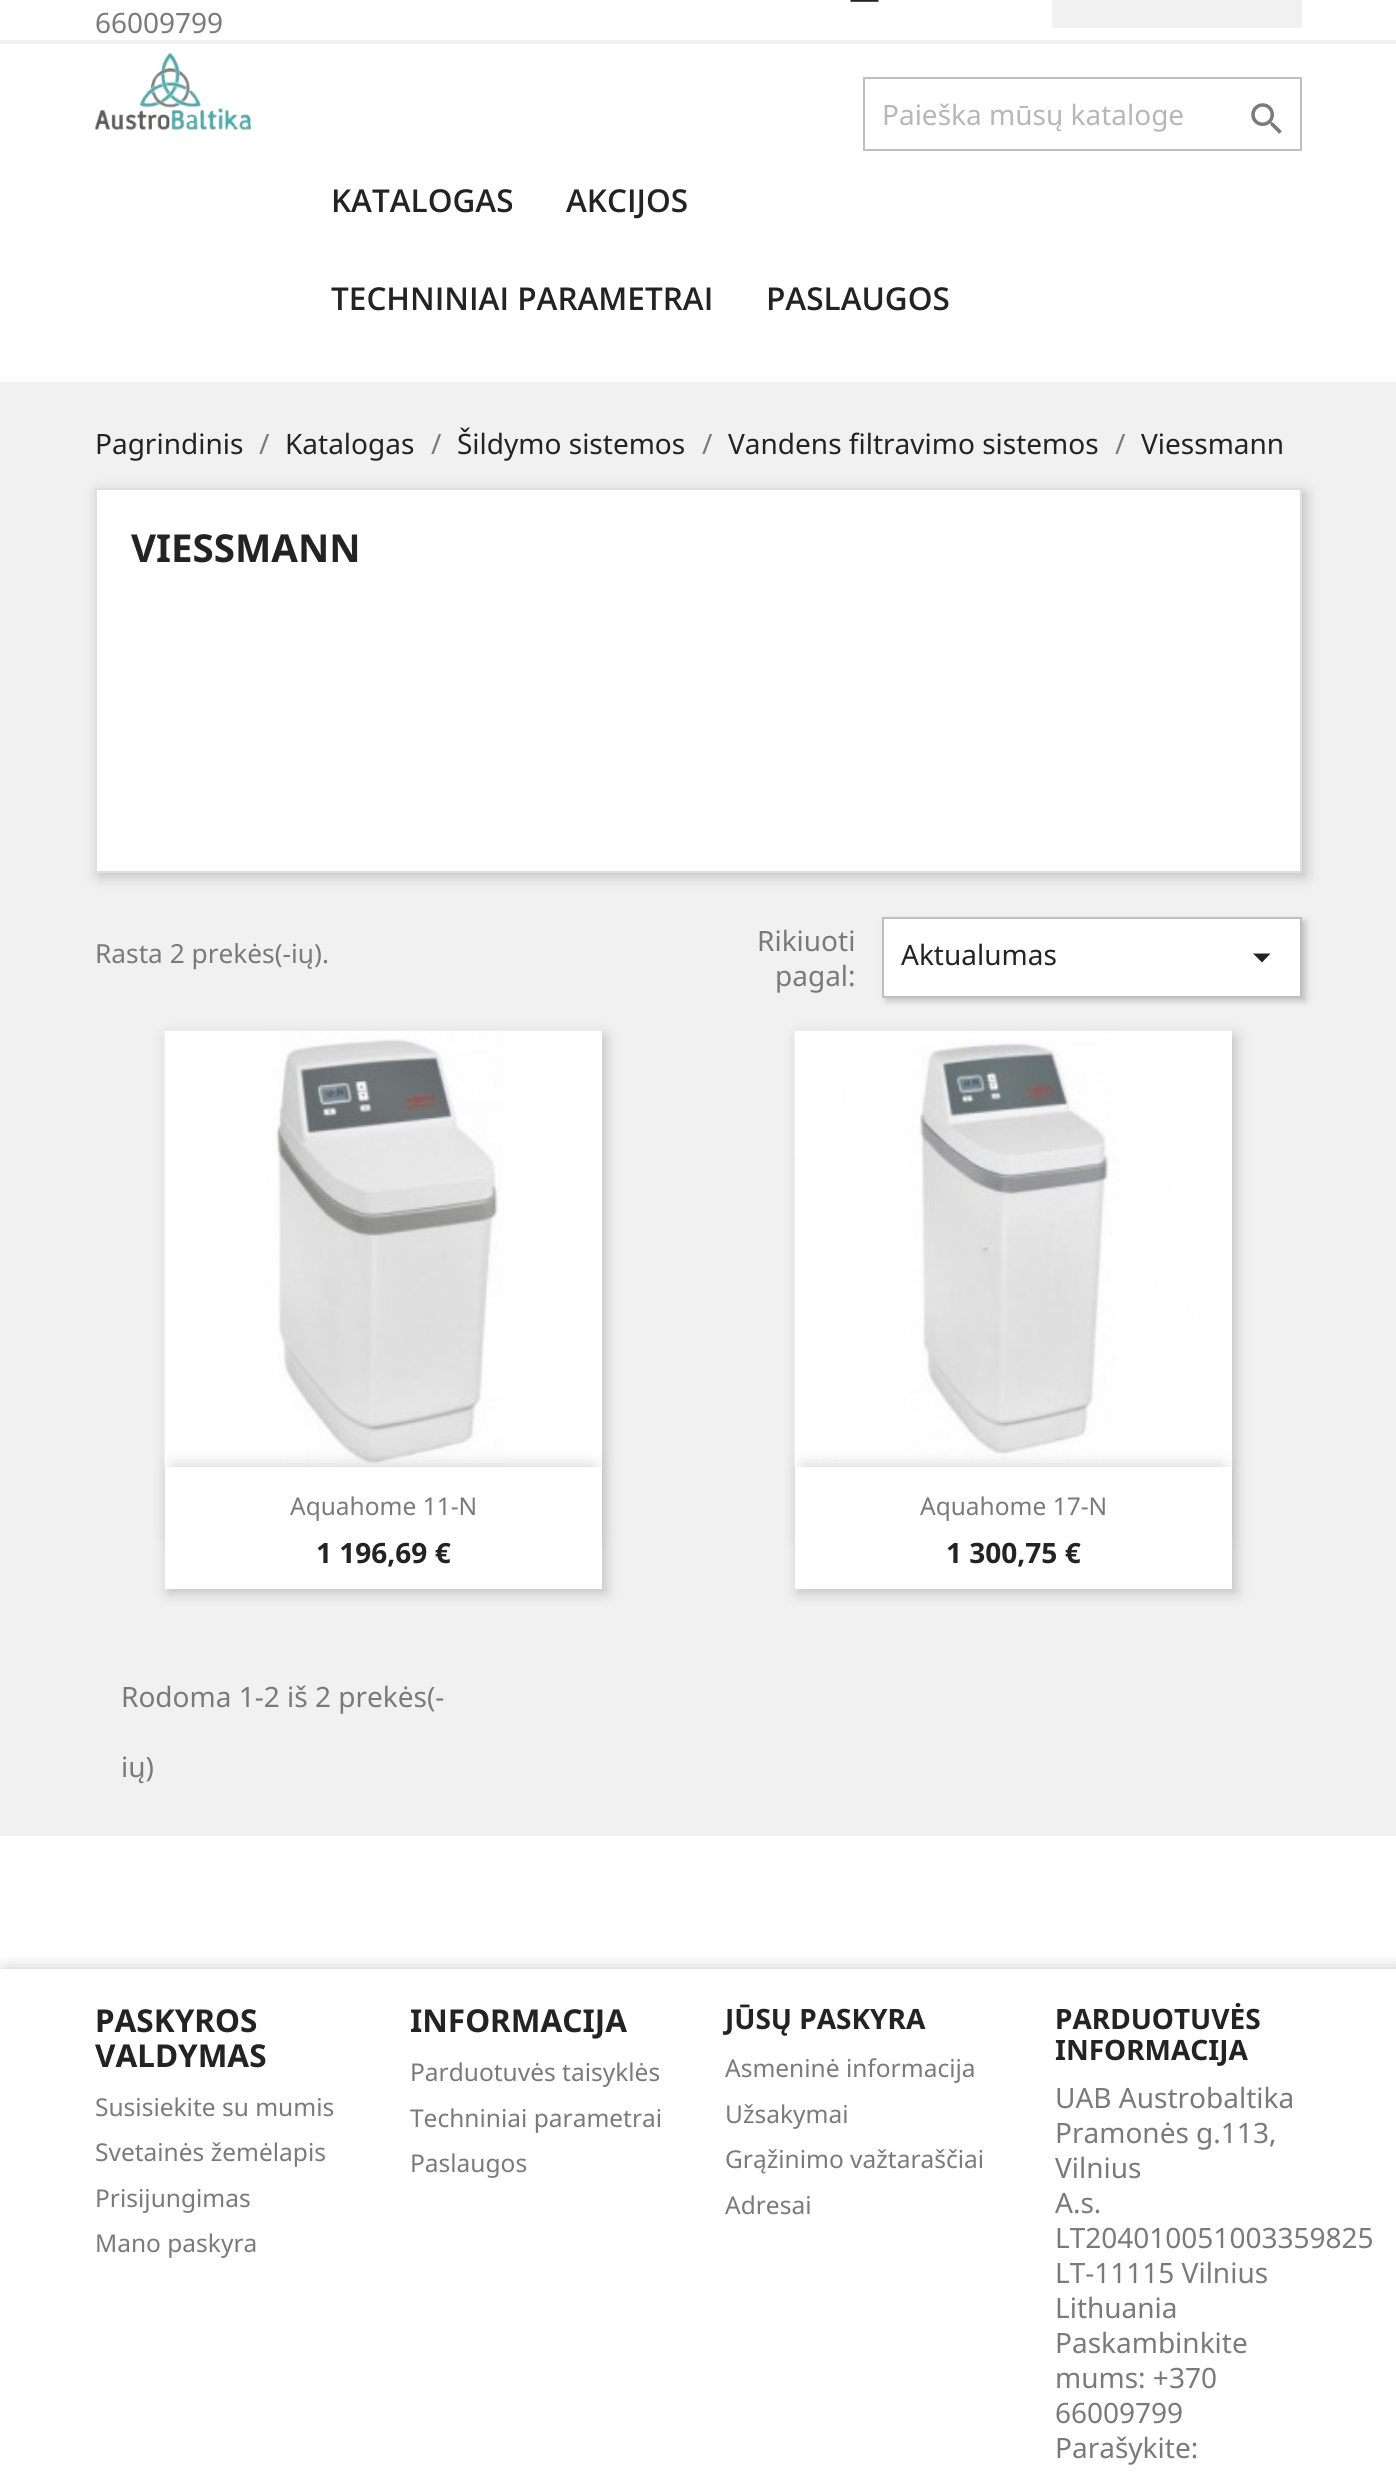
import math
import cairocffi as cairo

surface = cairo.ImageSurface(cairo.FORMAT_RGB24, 1396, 2476)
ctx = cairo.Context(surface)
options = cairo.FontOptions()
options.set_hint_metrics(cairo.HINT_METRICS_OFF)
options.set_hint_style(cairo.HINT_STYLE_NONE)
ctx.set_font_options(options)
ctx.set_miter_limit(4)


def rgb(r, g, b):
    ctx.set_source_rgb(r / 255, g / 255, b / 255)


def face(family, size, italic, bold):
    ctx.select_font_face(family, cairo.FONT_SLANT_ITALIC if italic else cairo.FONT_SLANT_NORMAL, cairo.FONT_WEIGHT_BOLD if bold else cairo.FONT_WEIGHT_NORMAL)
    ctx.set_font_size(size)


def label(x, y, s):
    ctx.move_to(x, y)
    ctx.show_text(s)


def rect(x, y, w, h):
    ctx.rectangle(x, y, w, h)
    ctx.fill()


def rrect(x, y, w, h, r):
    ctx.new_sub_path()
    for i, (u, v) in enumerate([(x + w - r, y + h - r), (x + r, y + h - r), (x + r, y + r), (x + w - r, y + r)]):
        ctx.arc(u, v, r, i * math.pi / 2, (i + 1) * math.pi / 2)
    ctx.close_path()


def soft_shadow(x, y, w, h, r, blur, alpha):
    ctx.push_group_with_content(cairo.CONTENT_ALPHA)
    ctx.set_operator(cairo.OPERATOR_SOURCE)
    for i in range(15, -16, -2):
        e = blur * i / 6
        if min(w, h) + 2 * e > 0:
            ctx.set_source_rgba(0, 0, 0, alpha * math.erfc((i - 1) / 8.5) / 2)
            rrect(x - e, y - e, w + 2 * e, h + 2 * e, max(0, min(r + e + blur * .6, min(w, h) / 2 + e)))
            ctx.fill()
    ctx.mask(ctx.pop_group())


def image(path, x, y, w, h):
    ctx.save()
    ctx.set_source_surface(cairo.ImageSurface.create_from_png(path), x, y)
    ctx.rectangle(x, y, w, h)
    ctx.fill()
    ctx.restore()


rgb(255, 255, 255)
ctx.paint()
rgb(241, 241, 241)
rect(0, 40, 1396, 4)
face('Noto Sans', 28, 0, 0)
rgb(122, 122, 122)
label(95, 33, '66009799')
image('image0.png', 850, 0, 29, 2)
rgb(241, 241, 241)
rect(1052, 0, 250, 28)
image('image1.png', 94, 52, 158, 79)
ctx.rectangle(864, 78, 437, 72)
rgb(191, 191, 191)
ctx.stroke()
rgb(183, 183, 183)
label(882, 125, 'Paieška mūsų kataloge')
image('image2.png', 1251, 103, 31, 31)
face('Open Sans SemiBold', 31.5, 0, 0)
rgb(35, 35, 35)
label(331, 212, 'KATALOGAS')
label(566, 212, 'AKCIJOS')
label(331, 310, 'TECHNINIAI PARAMETRAI')
label(766, 310, 'PASLAUGOS')
rgb(241, 241, 241)
rect(0, 382, 1396, 1454)
face('Noto Sans', 28, 0, 0)
rgb(35, 35, 35)
label(95, 454, 'Pagrindinis')
rgb(122, 122, 122)
label(259, 454, '/')
rgb(35, 35, 35)
label(285, 454, 'Katalogas')
rgb(122, 122, 122)
label(431, 454, '/')
rgb(35, 35, 35)
label(457, 454, 'Šildymo sistemos')
rgb(122, 122, 122)
label(702, 454, '/')
rgb(35, 35, 35)
label(728, 454, 'Vandens filtravimo sistemos')
rgb(122, 122, 122)
label(1115, 454, '/')
rgb(35, 35, 35)
label(1141, 454, 'Viessmann')
rgb(0, 0, 0)
soft_shadow(98, 492, 1208, 385, 0, 7, 0.2)
rgb(255, 255, 255)
ctx.rectangle(96, 489, 1205, 383)
ctx.fill_preserve()
rgb(223, 223, 223)
ctx.stroke()
face('Noto Sans', 38.5, 0, 1)
rgb(35, 35, 35)
label(131, 562, 'VIESSMANN')
face('Noto Sans', 26.25, 0, 0)
rgb(122, 122, 122)
label(95, 963, 'Rasta 2 prekės(-ių).')
face('Noto Sans', 28, 0, 0)
label(757, 951, 'Rikiuoti')
label(775, 986, 'pagal:')
rgb(0, 0, 0)
soft_shadow(886, 921, 420, 80, 0, 3.5, 0.2)
rgb(255, 255, 255)
ctx.rectangle(883, 918, 418, 79)
ctx.fill_preserve()
rgb(191, 191, 191)
ctx.stroke()
rgb(35, 35, 35)
label(901, 965, 'Aktualumas')
ctx.new_path()
ctx.move_to(1253, 953.5)
ctx.line_to(1270.5, 953.5)
ctx.line_to(1262, 962.5)
ctx.close_path()
ctx.fill()
rgb(0, 0, 0)
soft_shadow(168, 1036, 438, 557, 0, 7, 0.2)
image('image3.png', 164, 1030, 438, 438)
soft_shadow(173, 1467, 420, 70, 0, 9, 0.2)
rgb(255, 255, 255)
rect(165, 1467, 437, 122)
face('Noto Sans', 24.5, 0, 0)
rgb(122, 122, 122)
label(290, 1515, 'Aquahome 11-N')
face('Noto Sans', 28, 0, 1)
rgb(35, 35, 35)
label(316, 1563, '1 196,69 €')
rgb(0, 0, 0)
soft_shadow(798, 1036, 438, 557, 0, 7, 0.2)
image('image4.png', 794, 1030, 438, 438)
soft_shadow(803, 1467, 420, 70, 0, 9, 0.2)
rgb(255, 255, 255)
rect(795, 1467, 437, 122)
face('Noto Sans', 24.5, 0, 0)
rgb(122, 122, 122)
label(920, 1515, 'Aquahome 17-N')
face('Noto Sans', 28, 0, 1)
rgb(35, 35, 35)
label(946, 1563, '1 300,75 €')
face('Noto Sans', 28, 0, 0)
rgb(122, 122, 122)
label(121, 1707, 'Rodoma 1-2 iš 2 prekės(-')
label(121, 1777, 'ių)')
ctx.save()
ctx.rectangle(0, 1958, 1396, 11)
ctx.clip()
rgb(0, 0, 0)
soft_shadow(4, 1972, 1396, 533, 0, 9.5, 0.3)
ctx.restore()
face('Noto Sans', 31.5, 0, 1)
rgb(35, 35, 35)
label(95, 2032, 'PASKYROS')
label(95, 2067, 'VALDYMAS')
face('Noto Sans', 24.5, 0, 0)
rgb(122, 122, 122)
label(95, 2116, 'Susisiekite su mumis')
label(95, 2161, 'Svetainės žemėlapis')
label(95, 2207, 'Prisijungimas')
label(95, 2252, 'Mano paskyra')
face('Noto Sans', 31.5, 0, 1)
rgb(35, 35, 35)
label(410, 2032, 'INFORMACIJA')
face('Noto Sans', 24.5, 0, 0)
rgb(122, 122, 122)
label(410, 2081, 'Parduotuvės taisyklės')
label(410, 2127, 'Techniniai parametrai')
label(410, 2172, 'Paslaugos')
face('Noto Sans', 28, 0, 1)
rgb(35, 35, 35)
label(725, 2029, 'JŪSŲ PASKYRA')
face('Noto Sans', 24.5, 0, 0)
rgb(122, 122, 122)
label(725, 2077, 'Asmeninė informacija')
label(725, 2123, 'Užsakymai')
label(725, 2168, 'Grąžinimo važtaraščiai')
label(725, 2214, 'Adresai')
face('Noto Sans', 28, 0, 1)
rgb(35, 35, 35)
label(1055, 2029, 'PARDUOTUVĖS')
label(1055, 2060, 'INFORMACIJA')
face('Noto Sans', 28, 0, 0)
rgb(122, 122, 122)
label(1055, 2108, 'UAB Austrobaltika')
label(1055, 2143, 'Pramonės g.113,')
label(1055, 2178, 'Vilnius')
label(1055, 2213, 'A.s.')
label(1055, 2248, 'LT204010051003359825')
label(1055, 2283, 'LT-11115 Vilnius')
label(1055, 2318, 'Lithuania')
label(1055, 2353, 'Paskambinkite')
label(1055, 2388, 'mums: +370')
label(1055, 2423, '66009799')
label(1055, 2458, 'Parašykite:')
surface.write_to_png('render.png')
